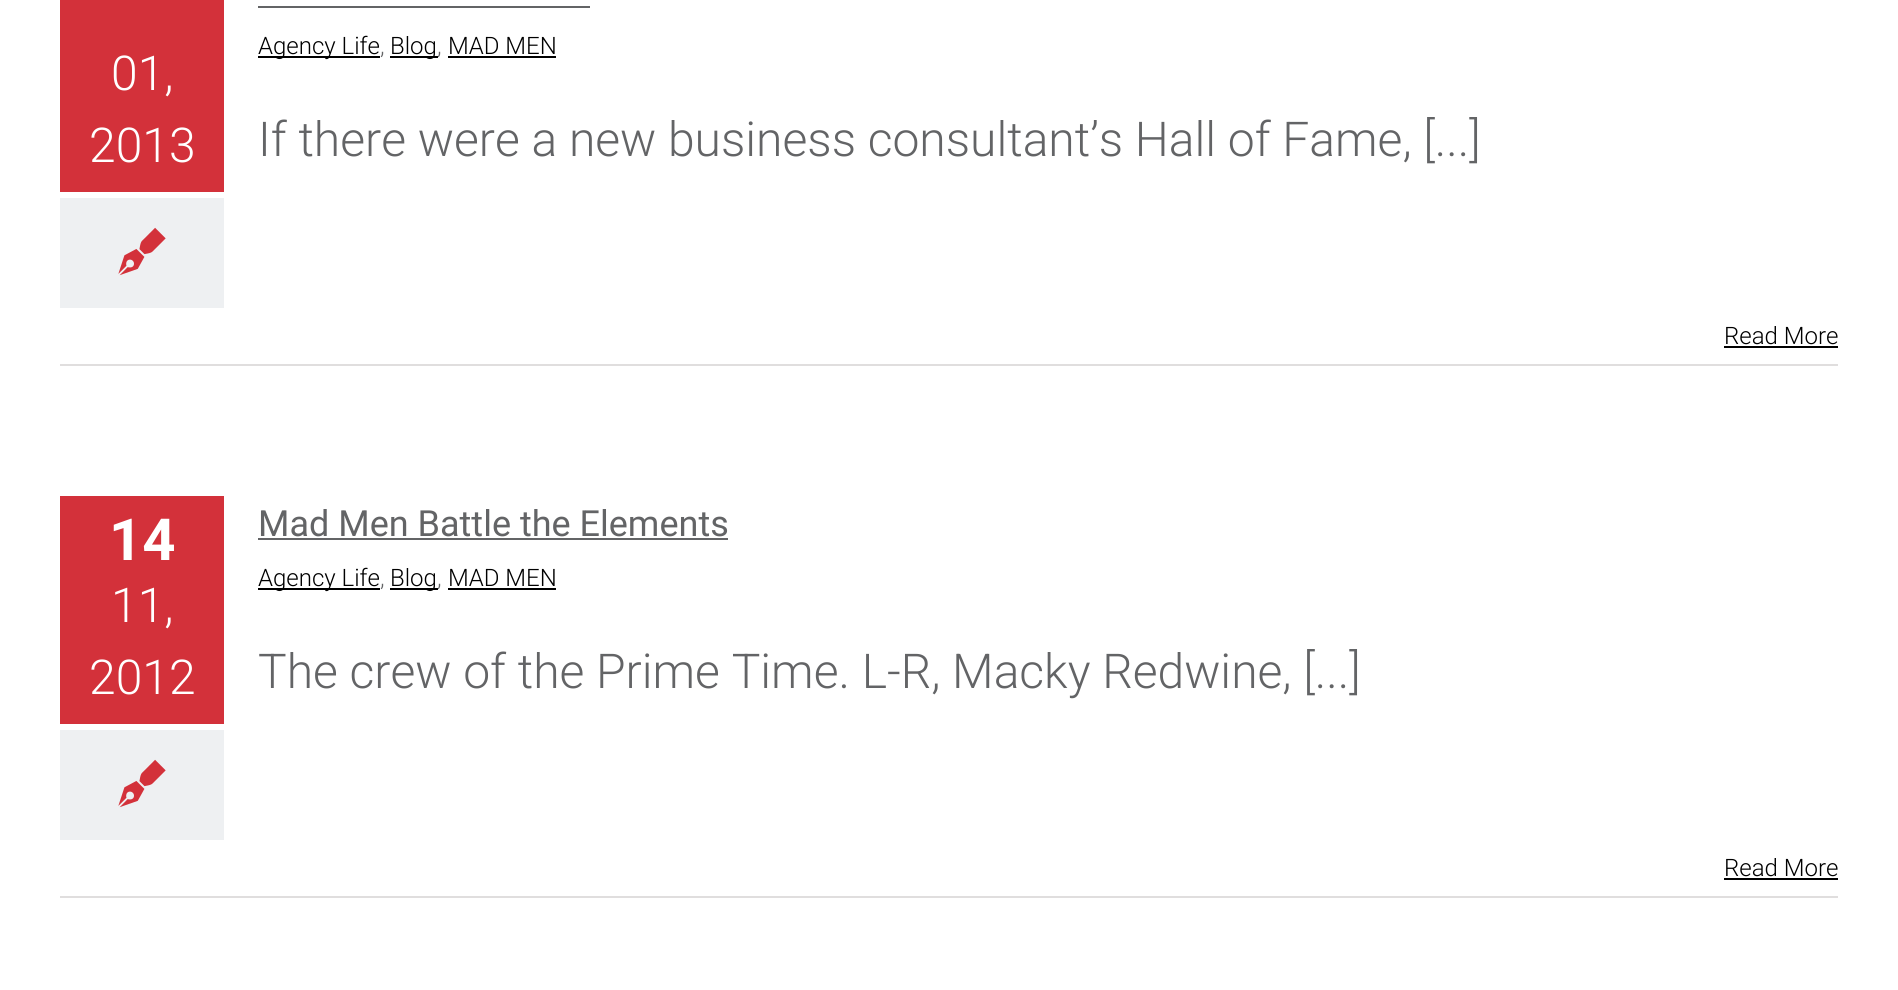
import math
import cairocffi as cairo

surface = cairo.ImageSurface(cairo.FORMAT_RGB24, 1898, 990)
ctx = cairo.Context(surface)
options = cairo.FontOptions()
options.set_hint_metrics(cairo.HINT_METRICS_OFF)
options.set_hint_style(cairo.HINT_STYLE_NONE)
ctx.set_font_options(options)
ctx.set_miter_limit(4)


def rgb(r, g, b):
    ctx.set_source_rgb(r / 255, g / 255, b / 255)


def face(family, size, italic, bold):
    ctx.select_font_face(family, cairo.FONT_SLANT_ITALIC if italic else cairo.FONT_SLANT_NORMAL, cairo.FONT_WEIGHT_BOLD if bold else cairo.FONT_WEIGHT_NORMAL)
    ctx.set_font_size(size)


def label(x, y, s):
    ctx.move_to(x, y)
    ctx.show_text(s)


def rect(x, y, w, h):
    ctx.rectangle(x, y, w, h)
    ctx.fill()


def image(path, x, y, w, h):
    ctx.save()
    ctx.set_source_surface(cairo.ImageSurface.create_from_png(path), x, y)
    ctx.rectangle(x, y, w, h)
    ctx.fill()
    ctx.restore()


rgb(255, 255, 255)
ctx.paint()
rgb(211, 49, 58)
rect(60, 0, 164, 192)
face('Roboto Light', 48, 0, 0)
rgb(255, 255, 255)
label(111, 90, '01,')
label(89, 162, '2013')
rgb(238, 240, 242)
rect(60, 198, 164, 110)
image('image0.png', 118, 227, 48, 49)
rgb(99, 100, 102)
rect(258, 6, 332, 2)
rgb(0, 0, 0)
rect(258, 56, 122, 2)
face('Roboto Light', 24, 0, 0)
label(258, 54, 'Agency Life')
rgb(99, 100, 102)
label(380, 54, ',')
rgb(0, 0, 0)
rect(390, 56, 48, 2)
label(390, 54, 'Blog')
rgb(99, 100, 102)
label(437, 54, ',')
rgb(0, 0, 0)
label(448, 54, 'MAD MEN')
rect(448, 56, 108, 2)
face('Roboto Light', 48, 0, 0)
rgb(99, 100, 102)
label(258, 156, 'If there were a new business consultant’s Hall of Fame, [...]')
rgb(224, 222, 222)
rect(60, 364, 1778, 2)
face('Roboto Light', 24, 0, 0)
rgb(0, 0, 0)
label(1724, 344, 'Read More')
rect(1724, 346, 114, 2)
rgb(211, 49, 58)
rect(60, 496, 164, 228)
face('Roboto', 58, 0, 1)
rgb(255, 255, 255)
label(109, 560, '14')
face('Roboto Light', 48, 0, 0)
label(111, 622, '11,')
label(89, 694, '2012')
rgb(238, 240, 242)
rect(60, 730, 164, 110)
image('image0.png', 118, 759, 48, 49)
face('Roboto', 36, 0, 0)
rgb(99, 100, 102)
label(258, 536, 'Mad Men Battle the Elements')
rect(258, 538, 470, 2)
rgb(0, 0, 0)
rect(258, 588, 122, 2)
face('Roboto Light', 24, 0, 0)
label(258, 586, 'Agency Life')
rgb(99, 100, 102)
label(380, 586, ',')
rgb(0, 0, 0)
rect(390, 588, 48, 2)
label(390, 586, 'Blog')
rgb(99, 100, 102)
label(437, 586, ',')
rgb(0, 0, 0)
label(448, 586, 'MAD MEN')
rect(448, 588, 108, 2)
face('Roboto Light', 48, 0, 0)
rgb(99, 100, 102)
label(258, 688, 'The crew of the Prime Time. L-R, Macky Redwine, [...]')
rgb(224, 222, 222)
rect(60, 896, 1778, 2)
face('Roboto Light', 24, 0, 0)
rgb(0, 0, 0)
label(1724, 876, 'Read More')
rect(1724, 878, 114, 2)
surface.write_to_png('render.png')
